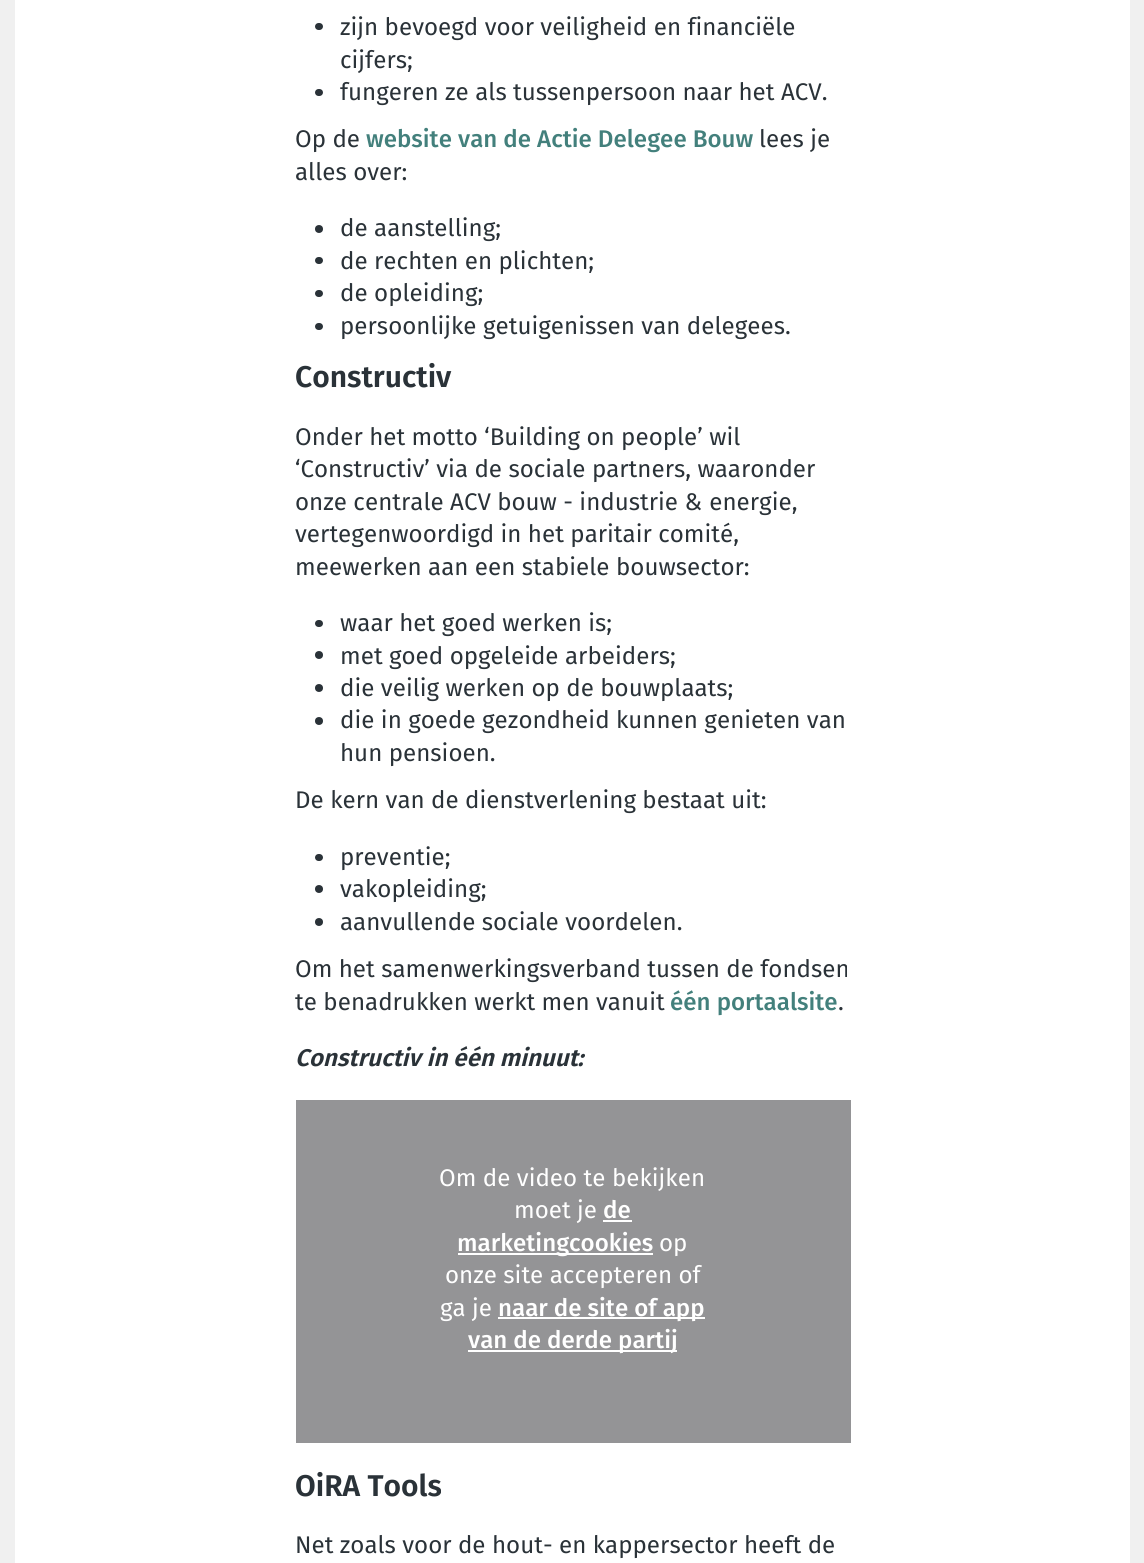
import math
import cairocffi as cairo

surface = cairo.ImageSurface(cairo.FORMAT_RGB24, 1144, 1563)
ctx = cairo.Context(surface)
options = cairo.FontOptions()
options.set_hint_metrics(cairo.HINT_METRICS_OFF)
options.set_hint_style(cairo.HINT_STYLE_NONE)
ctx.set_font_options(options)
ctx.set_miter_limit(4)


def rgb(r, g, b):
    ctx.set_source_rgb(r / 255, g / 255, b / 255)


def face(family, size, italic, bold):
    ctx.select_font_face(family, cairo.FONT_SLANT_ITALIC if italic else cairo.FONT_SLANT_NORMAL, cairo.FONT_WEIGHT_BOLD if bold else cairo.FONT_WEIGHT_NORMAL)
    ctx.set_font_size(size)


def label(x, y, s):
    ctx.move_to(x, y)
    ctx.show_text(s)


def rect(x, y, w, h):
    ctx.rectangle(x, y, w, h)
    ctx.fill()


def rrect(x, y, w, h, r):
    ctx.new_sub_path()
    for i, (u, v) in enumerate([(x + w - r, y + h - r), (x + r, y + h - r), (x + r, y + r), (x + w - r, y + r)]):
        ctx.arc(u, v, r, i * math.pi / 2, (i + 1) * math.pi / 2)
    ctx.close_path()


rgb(240, 240, 240)
ctx.paint()
rgb(255, 255, 255)
rect(15, 0, 1115, 1563)
rgb(42, 50, 56)
rrect(315, 23, 8, 7, 3.5)
ctx.fill()
face('Fira Sans', 24.1, 0, 0)
label(340, 35, 'zijn bevoegd voor veiligheid en financiële')
label(340, 68, 'cijfers;')
rrect(315, 89, 8, 7, 3.5)
ctx.fill()
label(340, 100, 'fungeren ze als tussenpersoon naar het ACV.')
label(295, 147, 'Op de')
face('Fira Sans Medium', 24.1, 0, 0)
rgb(67, 128, 124)
label(366, 147, 'website van de Actie Delegee Bouw')
face('Fira Sans', 24.1, 0, 0)
rgb(42, 50, 56)
label(759, 147, 'lees je')
label(295, 180, 'alles over:')
ctx.new_path()
ctx.arc(319, 229, 4, 0, 2 * math.pi)
ctx.fill()
label(340, 236, 'de aanstelling;')
rrect(315, 257, 8, 7, 3.5)
ctx.fill()
label(340, 269, 'de rechten en plichten;')
rrect(315, 290, 8, 7, 3.5)
ctx.fill()
label(340, 301, 'de opleiding;')
rrect(315, 323, 8, 7, 3.5)
ctx.fill()
label(340, 334, 'persoonlijke getuigenissen van delegees.')
face('Fira Sans SemiBold', 30, 0, 0)
label(295, 387, 'Constructiv')
face('Fira Sans', 24.1, 0, 0)
label(295, 445, 'Onder het motto ‘Building on people’ wil')
label(295, 477, '‘Constructiv’ via de sociale partners, waaronder')
label(295, 510, 'onze centrale ACV bouw - industrie & energie,')
label(295, 542, 'vertegenwoordigd in het paritair comité,')
label(295, 575, 'meewerken aan een stabiele bouwsector:')
rrect(315, 620, 8, 7, 3.5)
ctx.fill()
label(340, 631, 'waar het goed werken is;')
ctx.new_path()
ctx.arc(319, 655, 4, 0, 2 * math.pi)
ctx.fill()
label(340, 664, 'met goed opgeleide arbeiders;')
ctx.new_path()
ctx.arc(319, 688, 4, 0, 2 * math.pi)
ctx.fill()
label(340, 696, 'die veilig werken op de bouwplaats;')
ctx.new_path()
ctx.arc(319, 721, 4, 0, 2 * math.pi)
ctx.fill()
label(340, 728, 'die in goede gezondheid kunnen genieten van')
label(340, 761, 'hun pensioen.')
label(295, 808, 'De kern van de dienstverlening bestaat uit:')
rrect(315, 854, 8, 7, 3.5)
ctx.fill()
label(340, 865, 'preventie;')
ctx.new_path()
ctx.arc(319, 889, 4, 0, 2 * math.pi)
ctx.fill()
label(340, 897, 'vakopleiding;')
ctx.new_path()
ctx.arc(319, 922, 4, 0, 2 * math.pi)
ctx.fill()
label(340, 930, 'aanvullende sociale voordelen.')
label(295, 977, 'Om het samenwerkingsverband tussen de fondsen')
label(295, 1010, 'te benadrukken werkt men vanuit')
face('Fira Sans Medium', 24.1, 0, 0)
rgb(67, 128, 124)
label(670, 1010, 'één portaalsite')
face('Fira Sans', 24.1, 0, 0)
rgb(42, 50, 56)
label(838, 1010, '.')
face('Fira Sans SemiBold', 24.1, 1, 0)
label(295, 1066, 'Constructiv in één minuut:')
rgb(148, 148, 150)
rect(296, 1100, 555, 343)
face('Fira Sans', 24.1, 0, 0)
rgb(255, 255, 255)
label(439, 1186, 'Om de video te bekijken')
label(514, 1218, 'moet je')
face('Fira Sans Medium', 24.1, 0, 0)
label(603, 1218, 'de')
rect(603, 1220, 29, 2)
rect(458, 1253, 195, 2)
label(457, 1251, 'marketingcookies')
face('Fira Sans', 24.1, 0, 0)
label(659, 1251, 'op')
label(445, 1283, 'onze site accepteren of')
label(440, 1316, 'ga je')
rect(498, 1317, 207, 2)
face('Fira Sans Medium', 24.1, 0, 0)
label(498, 1316, 'naar de site of app')
rect(468, 1350, 209, 2)
label(468, 1348, 'van de derde partij')
face('Fira Sans SemiBold', 30, 0, 0)
rgb(42, 50, 56)
label(295, 1496, 'OiRA Tools')
face('Fira Sans', 24.1, 0, 0)
label(295, 1553, 'Net zoals voor de hout- en kappersector heeft de')
surface.write_to_png('render.png')
